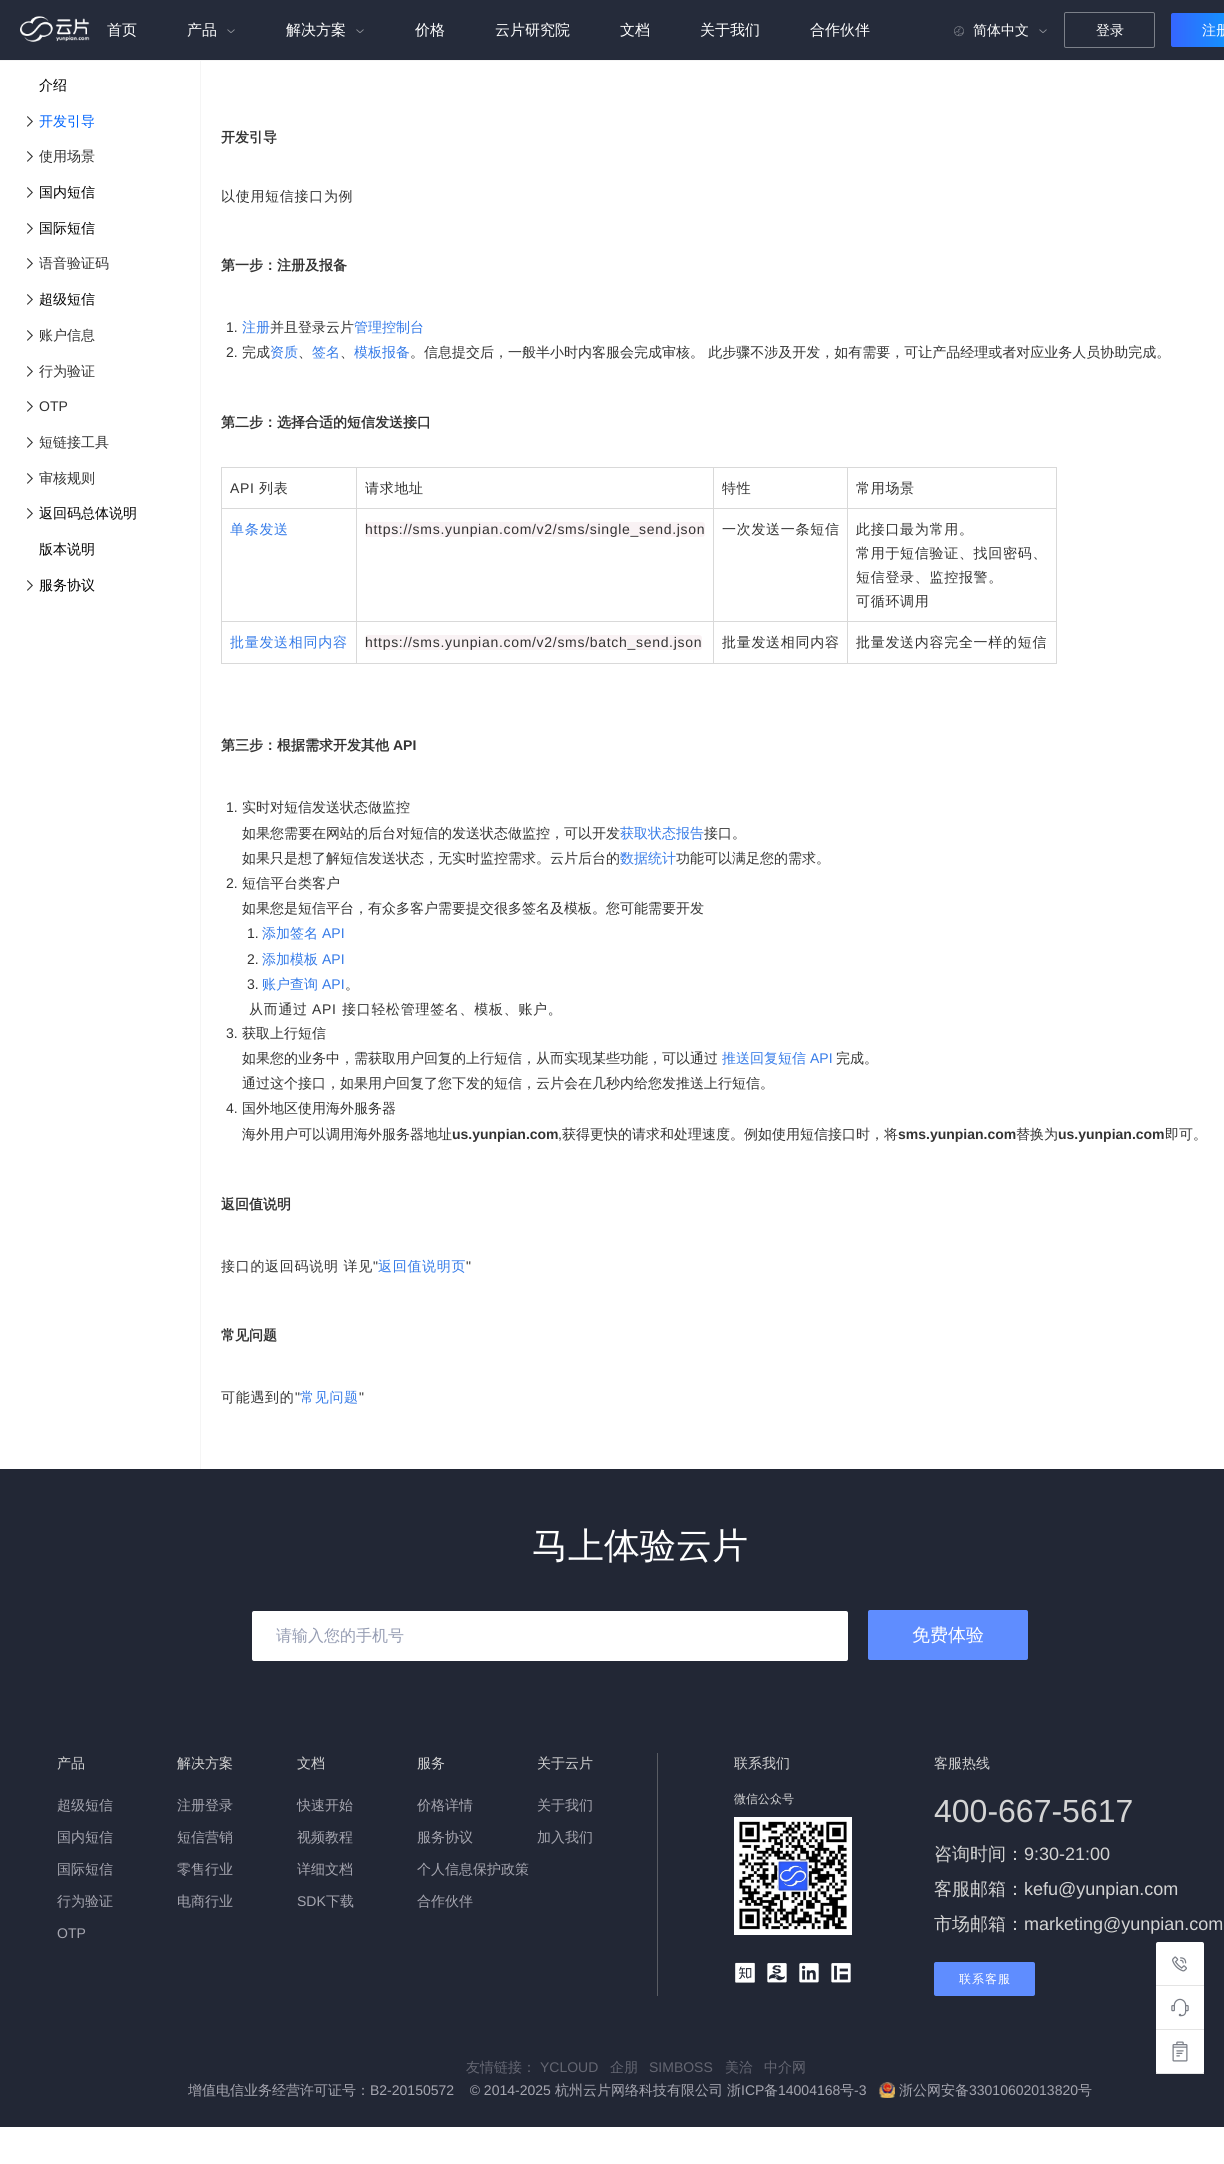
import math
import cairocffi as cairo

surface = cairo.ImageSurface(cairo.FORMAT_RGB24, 1224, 2164)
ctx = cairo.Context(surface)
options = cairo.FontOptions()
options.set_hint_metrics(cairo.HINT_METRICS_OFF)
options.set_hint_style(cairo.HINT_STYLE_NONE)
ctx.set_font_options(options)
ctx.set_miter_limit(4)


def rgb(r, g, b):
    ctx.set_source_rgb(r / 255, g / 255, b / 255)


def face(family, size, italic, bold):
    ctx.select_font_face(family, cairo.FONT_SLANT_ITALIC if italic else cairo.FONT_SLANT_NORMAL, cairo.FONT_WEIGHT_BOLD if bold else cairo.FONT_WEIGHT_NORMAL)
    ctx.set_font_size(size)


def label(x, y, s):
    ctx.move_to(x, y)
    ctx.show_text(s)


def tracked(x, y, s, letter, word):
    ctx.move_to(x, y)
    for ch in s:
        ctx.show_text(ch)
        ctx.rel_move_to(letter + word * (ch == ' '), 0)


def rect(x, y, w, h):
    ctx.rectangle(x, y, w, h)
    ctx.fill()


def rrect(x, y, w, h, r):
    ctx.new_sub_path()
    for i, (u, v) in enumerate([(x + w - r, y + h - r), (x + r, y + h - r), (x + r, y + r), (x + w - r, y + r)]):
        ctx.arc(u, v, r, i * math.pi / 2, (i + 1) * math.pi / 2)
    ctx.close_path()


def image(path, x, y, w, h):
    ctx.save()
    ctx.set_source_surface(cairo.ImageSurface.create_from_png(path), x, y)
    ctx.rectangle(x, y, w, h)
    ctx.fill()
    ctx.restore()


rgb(255, 255, 255)
ctx.paint()
rgb(37, 43, 58)
rect(0, 0, 1224, 60)
image('image0.png', 20, 16, 70, 26)
face('WenQuanYi Zen Hei Medium', 15, 0, 0)
rgb(255, 255, 255)
label(107, 35, '首页')
label(187, 35, '产品')
image('image1.png', 227, 29, 8, 4)
label(286, 35, '解决方案')
image('image1.png', 356, 29, 8, 4)
label(415, 35, '价格')
label(495, 35, '云片研究院')
label(620, 35, '文档')
label(700, 35, '关于我们')
label(810, 35, '合作伙伴')
image('image2.png', 954, 26, 10, 11)
face('WenQuanYi Zen Hei Medium', 14, 0, 0)
label(973, 35, '简体中文')
image('image1.png', 1039, 29, 8, 4)
rrect(1064.5, 12.5, 90, 35, 1.5)
rgb(124, 128, 137)
ctx.set_line_width(1)
ctx.stroke()
rgb(255, 255, 255)
label(1096, 35, '登录')
gradient = cairo.LinearGradient(1171, 30, 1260, 30)
gradient.add_color_stop_rgba(0, 0.208, 0.4, 1, 1)
gradient.add_color_stop_rgba(1, 0, 0.671, 0.984, 1)
ctx.set_source(gradient)
rrect(1171, 13, 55, 34, 2)
ctx.fill()
rgb(255, 255, 255)
label(1202, 35, '注册')
rgb(245, 245, 245)
rect(0, 60, 1224, 1)
rgb(0, 0, 0)
label(39, 90, '介绍')
image('image3.png', 27, 116, 6, 11)
rgb(0, 100, 253)
label(39, 126, '开发引导')
image('image3.png', 27, 151, 6, 11)
rgb(51, 51, 51)
label(39, 161, '使用场景')
image('image3.png', 27, 187, 6, 11)
rgb(0, 0, 0)
label(39, 197, '国内短信')
image('image3.png', 27, 223, 6, 11)
label(39, 233, '国际短信')
image('image3.png', 27, 258, 6, 11)
rgb(51, 51, 51)
label(39, 268, '语音验证码')
image('image3.png', 27, 294, 6, 11)
rgb(0, 0, 0)
label(39, 304, '超级短信')
image('image3.png', 27, 330, 6, 11)
rgb(51, 51, 51)
label(39, 340, '账户信息')
image('image3.png', 27, 366, 6, 11)
label(39, 376, '行为验证')
image('image3.png', 27, 401, 6, 11)
face('Liberation Sans', 14, 0, 0)
label(39, 411, 'OTP')
image('image3.png', 27, 437, 6, 11)
face('WenQuanYi Zen Hei Medium', 14, 0, 0)
label(39, 447, '短链接工具')
image('image3.png', 27, 473, 6, 11)
label(39, 483, '审核规则')
image('image3.png', 27, 508, 6, 11)
rgb(0, 0, 0)
label(39, 518, '返回码总体说明')
label(39, 554, '版本说明')
image('image3.png', 27, 580, 6, 11)
label(39, 590, '服务协议')
rgb(245, 245, 245)
rect(200, 60, 1, 1409)
face('WenQuanYi Zen Hei', 14, 0, 1)
rgb(51, 51, 51)
label(221, 142, '开发引导')
face('WenQuanYi Zen Hei Medium', 14, 0, 0)
tracked(221, 201, '以使用短信接口为例', 0.7, 0)
face('WenQuanYi Zen Hei', 14, 0, 1)
label(221, 270, '第一步：注册及报备')
face('Liberation Sans', 14, 0, 0)
label(226, 332, '1.')
face('WenQuanYi Zen Hei Medium', 14, 0, 0)
rgb(53, 123, 232)
label(242, 332, '注册')
rgb(51, 51, 51)
label(270, 332, '并且登录云片')
rgb(53, 123, 232)
label(354, 332, '管理控制台')
face('Liberation Sans', 14, 0, 0)
rgb(51, 51, 51)
label(226, 357, '2.')
face('WenQuanYi Zen Hei Medium', 14, 0, 0)
label(242, 357, '完成')
rgb(53, 123, 232)
label(270, 357, '资质')
rgb(51, 51, 51)
label(298, 357, '、')
rgb(53, 123, 232)
label(312, 357, '签名')
rgb(51, 51, 51)
label(340, 357, '、')
rgb(53, 123, 232)
label(354, 357, '模板报备')
rgb(51, 51, 51)
label(410, 357, '。信息提交后，一般半小时内客服会完成审核。 此步骤不涉及开发，如有需要，可让产品经理或者对应业务人员协助完成。')
face('WenQuanYi Zen Hei', 14, 0, 1)
label(221, 427, '第二步：选择合适的短信发送接口')
rgb(217, 217, 217)
rect(847, 467, 210, 1)
rect(847, 508, 210, 1)
rect(847, 621, 210, 1)
rect(1056, 621, 1, 43)
rect(847, 663, 210, 1)
rect(847, 621, 1, 43)
rect(713, 621, 135, 1)
rect(847, 508, 1, 114)
rect(713, 508, 135, 1)
rect(847, 467, 1, 42)
rect(713, 467, 135, 1)
rect(713, 663, 135, 1)
rect(713, 621, 1, 43)
rect(356, 621, 358, 1)
rect(713, 508, 1, 114)
rect(356, 508, 358, 1)
rect(713, 467, 1, 42)
rect(356, 467, 358, 1)
rect(356, 663, 358, 1)
rect(356, 621, 1, 43)
rect(221, 621, 136, 1)
rect(356, 508, 1, 114)
rect(221, 508, 136, 1)
rect(356, 467, 1, 42)
rect(221, 467, 136, 1)
rect(221, 663, 136, 1)
rect(221, 621, 1, 43)
rect(221, 508, 1, 114)
rect(221, 467, 1, 42)
face('Liberation Sans', 14, 0, 0)
rgb(51, 51, 51)
tracked(230, 493, 'API', 0.7, 0)
face('WenQuanYi Zen Hei Medium', 14, 0, 0)
tracked(259, 493, '列表', 0.7, 0)
tracked(365, 493, '请求地址', 0.7, 0)
tracked(722, 493, '特性', 0.7, 0)
rgb(217, 217, 217)
rect(1056, 508, 1, 114)
rect(1056, 467, 1, 42)
rgb(51, 51, 51)
tracked(856, 493, '常用场景', 0.7, 0)
rgb(53, 123, 232)
tracked(230, 534, '单条发送', 0.7, 0)
rgb(249, 242, 244)
rrect(365, 522, 340, 15, 3)
ctx.fill()
face('Liberation Sans', 14, 0, 0)
rgb(51, 51, 51)
tracked(365, 534, 'https://sms.yunpian.com/v2/sms/single_send.json', 0.7, 0)
face('WenQuanYi Zen Hei Medium', 14, 0, 0)
tracked(722, 534, '一次发送一条短信', 0.7, 0)
tracked(856, 534, '此接口最为常用。', 0.7, 0)
tracked(856, 558, '常用于短信验证、找回密码、', 0.7, 0)
tracked(856, 582, '短信登录、监控报警。', 0.7, 0)
tracked(856, 606, '可循环调用', 0.7, 0)
rgb(53, 123, 232)
tracked(230, 647, '批量发送相同内容', 0.7, 0)
rgb(249, 242, 244)
rrect(365, 635, 337, 15, 3)
ctx.fill()
face('Liberation Sans', 14, 0, 0)
rgb(51, 51, 51)
tracked(365, 647, 'https://sms.yunpian.com/v2/sms/batch_send.json', 0.7, 0)
face('WenQuanYi Zen Hei Medium', 14, 0, 0)
tracked(722, 647, '批量发送相同内容', 0.7, 0)
tracked(856, 647, '批量发送内容完全一样的短信', 0.7, 0)
face('WenQuanYi Zen Hei', 14, 0, 1)
label(221, 750, '第三步：根据需求开发其他')
face('Liberation Sans', 14, 0, 1)
label(393, 750, 'API')
face('Liberation Sans', 14, 0, 0)
label(226, 812, '1.')
face('WenQuanYi Zen Hei Medium', 14, 0, 0)
label(242, 812, '实时对短信发送状态做监控')
label(242, 838, '如果您需要在网站的后台对短信的发送状态做监控，可以开发')
rgb(53, 123, 232)
label(620, 838, '获取状态报告')
rgb(51, 51, 51)
label(704, 838, '接口。')
label(242, 863, '如果只是想了解短信发送状态，无实时监控需求。云片后台的')
rgb(53, 123, 232)
label(620, 863, '数据统计')
rgb(51, 51, 51)
label(676, 863, '功能可以满足您的需求。')
face('Liberation Sans', 14, 0, 0)
label(226, 888, '2.')
face('WenQuanYi Zen Hei Medium', 14, 0, 0)
label(242, 888, '短信平台类客户')
label(242, 913, '如果您是短信平台，有众多客户需要提交很多签名及模板。您可能需要开发')
face('Liberation Sans', 14, 0, 0)
label(247, 938, '1.')
face('WenQuanYi Zen Hei Medium', 14, 0, 0)
rgb(53, 123, 232)
label(262, 938, '添加签名')
face('Liberation Sans', 14, 0, 0)
label(322, 938, 'API')
rgb(51, 51, 51)
label(247, 964, '2.')
face('WenQuanYi Zen Hei Medium', 14, 0, 0)
rgb(53, 123, 232)
label(262, 964, '添加模板')
face('Liberation Sans', 14, 0, 0)
label(322, 964, 'API')
rgb(51, 51, 51)
label(247, 989, '3.')
face('WenQuanYi Zen Hei Medium', 14, 0, 0)
rgb(53, 123, 232)
label(262, 989, '账户查询')
face('Liberation Sans', 14, 0, 0)
label(322, 989, 'API')
face('WenQuanYi Zen Hei Medium', 14, 0, 0)
rgb(51, 51, 51)
label(345, 989, '。')
tracked(249, 1014, '从而通过', 0.7, 0)
face('Liberation Sans', 14, 0, 0)
tracked(312, 1014, 'API', 0.7, 0)
face('WenQuanYi Zen Hei Medium', 14, 0, 0)
tracked(342, 1014, '接口轻松管理签名、模板、账户。', 0.7, 0)
face('Liberation Sans', 14, 0, 0)
label(226, 1038, '3.')
face('WenQuanYi Zen Hei Medium', 14, 0, 0)
label(242, 1038, '获取上行短信')
label(242, 1063, '如果您的业务中，需获取用户回复的上行短信，从而实现某些功能，可以通过')
rgb(53, 123, 232)
label(722, 1063, '推送回复短信')
face('Liberation Sans', 14, 0, 0)
label(810, 1063, 'API')
face('WenQuanYi Zen Hei Medium', 14, 0, 0)
rgb(51, 51, 51)
label(836, 1063, '完成。')
label(242, 1088, '通过这个接口，如果用户回复了您下发的短信，云片会在几秒内给您发推送上行短信。')
face('Liberation Sans', 14, 0, 0)
label(226, 1113, '4.')
face('WenQuanYi Zen Hei Medium', 14, 0, 0)
label(242, 1113, '国外地区使用海外服务器')
label(242, 1139, '海外用户可以调用海外服务器地址')
face('Liberation Sans', 14, 0, 1)
label(452, 1139, 'us.yunpian.com')
face('Liberation Sans', 14, 0, 0)
label(558, 1139, ',')
face('WenQuanYi Zen Hei Medium', 14, 0, 0)
label(562, 1139, '获得更快的请求和处理速度。例如使用短信接口时，将')
face('Liberation Sans', 14, 0, 1)
label(898, 1139, 'sms.yunpian.com')
face('WenQuanYi Zen Hei Medium', 14, 0, 0)
label(1016, 1139, '替换为')
face('Liberation Sans', 14, 0, 1)
label(1058, 1139, 'us.yunpian.com')
face('WenQuanYi Zen Hei Medium', 14, 0, 0)
label(1165, 1139, '即可。')
face('WenQuanYi Zen Hei', 14, 0, 1)
label(221, 1209, '返回值说明')
face('WenQuanYi Zen Hei Medium', 14, 0, 0)
tracked(221, 1271, '接口的返回码说明 详见', 0.7, 0)
face('Liberation Sans', 14, 0, 0)
tracked(373, 1271, '"', 0.7, 0)
face('WenQuanYi Zen Hei Medium', 14, 0, 0)
rgb(53, 123, 232)
tracked(378, 1271, '返回值说明页', 0.7, 0)
face('Liberation Sans', 14, 0, 0)
rgb(51, 51, 51)
tracked(466, 1271, '"', 0.7, 0)
face('WenQuanYi Zen Hei', 14, 0, 1)
label(221, 1340, '常见问题')
face('WenQuanYi Zen Hei Medium', 14, 0, 0)
tracked(221, 1402, '可能遇到的', 0.7, 0)
face('Liberation Sans', 14, 0, 0)
tracked(295, 1402, '"', 0.7, 0)
face('WenQuanYi Zen Hei Medium', 14, 0, 0)
rgb(53, 123, 232)
tracked(300, 1402, '常见问题', 0.7, 0)
face('Liberation Sans', 14, 0, 0)
rgb(51, 51, 51)
tracked(359, 1402, '"', 0.7, 0)
rgb(34, 39, 53)
rect(0, 1469, 1224, 658)
face('WenQuanYi Zen Hei Medium', 36, 0, 0)
rgb(255, 255, 255)
label(532, 1558, '马上体验云片')
rrect(252, 1611, 596, 50, 2)
ctx.fill()
face('WenQuanYi Zen Hei Medium', 16, 0, 0)
rgb(150, 157, 179)
label(276, 1641, '请输入您的手机号')
rgb(95, 141, 255)
rrect(868, 1610, 160, 50, 2)
ctx.fill()
face('WenQuanYi Zen Hei Medium', 18, 0, 0)
rgb(255, 255, 255)
label(912, 1641, '免费体验')
rgb(90, 93, 100)
rect(657, 1753, 1, 243)
face('WenQuanYi Zen Hei Medium', 14, 0, 0)
rgb(212, 212, 212)
label(57, 1768, '产品')
rgb(166, 166, 176)
label(57, 1810, '超级短信')
label(57, 1842, '国内短信')
label(57, 1874, '国际短信')
label(57, 1906, '行为验证')
face('Liberation Sans', 14, 0, 0)
label(57, 1938, 'OTP')
face('WenQuanYi Zen Hei Medium', 14, 0, 0)
rgb(212, 212, 212)
label(177, 1768, '解决方案')
rgb(166, 166, 176)
label(177, 1810, '注册登录')
label(177, 1842, '短信营销')
label(177, 1874, '零售行业')
label(177, 1906, '电商行业')
rgb(212, 212, 212)
label(297, 1768, '文档')
rgb(166, 166, 176)
label(297, 1810, '快速开始')
label(297, 1842, '视频教程')
label(297, 1874, '详细文档')
face('Liberation Sans', 14, 0, 0)
label(297, 1906, 'SDK')
face('WenQuanYi Zen Hei Medium', 14, 0, 0)
label(326, 1906, '下载')
rgb(212, 212, 212)
label(417, 1768, '服务')
rgb(166, 166, 176)
label(417, 1810, '价格详情')
label(417, 1842, '服务协议')
label(417, 1874, '个人信息保护政策')
label(417, 1906, '合作伙伴')
rgb(212, 212, 212)
label(537, 1768, '关于云片')
rgb(166, 166, 176)
label(537, 1810, '关于我们')
label(537, 1842, '加入我们')
rgb(212, 212, 212)
label(734, 1768, '联系我们')
face('WenQuanYi Zen Hei Medium', 12, 0, 0)
label(734, 1803, '微信公众号')
ctx.rectangle(736, 1819, 114, 114)
rgb(255, 255, 255)
ctx.set_line_width(4)
ctx.stroke()
image('image4.png', 738, 1821, 110, 110)
image('image5.png', 735, 1962, 20, 21)
image('image6.png', 767, 1963, 20, 20)
image('image7.png', 799, 1963, 20, 20)
image('image8.png', 831, 1963, 20, 20)
face('WenQuanYi Zen Hei Medium', 14, 0, 0)
rgb(212, 212, 212)
label(934, 1768, '客服热线')
face('Liberation Sans', 32, 0, 0)
label(934, 1822, '400-667-5617')
face('WenQuanYi Zen Hei Medium', 18, 0, 0)
label(934, 1860, '咨询时间：')
face('Liberation Sans', 18, 0, 0)
label(1024, 1860, '9:30-21:00')
face('WenQuanYi Zen Hei Medium', 18, 0, 0)
label(934, 1895, '客服邮箱：')
face('Liberation Sans', 18, 0, 0)
label(1024, 1895, 'kefu@yunpian.com')
face('WenQuanYi Zen Hei Medium', 18, 0, 0)
label(934, 1930, '市场邮箱：')
face('Liberation Sans', 18, 0, 0)
label(1024, 1930, 'marketing@yunpian.com')
rgb(95, 141, 255)
rrect(934, 1962, 101, 34, 2)
ctx.fill()
face('WenQuanYi Zen Hei Medium', 12, 0, 0)
rgb(255, 255, 255)
tracked(959, 1983, '联系客服', 1, 0)
face('WenQuanYi Zen Hei Medium', 14, 0, 0)
rgb(100, 102, 114)
label(466, 2072, '友情链接：')
face('Liberation Sans', 14, 0, 0)
label(540, 2072, 'YCLOUD')
face('WenQuanYi Zen Hei Medium', 14, 0, 0)
label(610, 2072, '企朋')
face('Liberation Sans', 14, 0, 0)
label(649, 2072, 'SIMBOSS')
face('WenQuanYi Zen Hei Medium', 14, 0, 0)
label(725, 2072, '美洽')
label(764, 2072, '中介网')
rgb(166, 166, 176)
label(188, 2095, '增值电信业务经营许可证号：')
face('Liberation Sans', 14, 0, 0)
label(370, 2095, 'B2-20150572    © 2014-2025')
face('WenQuanYi Zen Hei Medium', 14, 0, 0)
label(555, 2095, '杭州云片网络科技有限公司')
label(727, 2095, '浙')
face('Liberation Sans', 14, 0, 0)
label(741, 2095, 'ICP')
face('WenQuanYi Zen Hei Medium', 14, 0, 0)
label(764, 2095, '备')
face('Liberation Sans', 14, 0, 0)
label(778, 2095, '14004168')
face('WenQuanYi Zen Hei Medium', 14, 0, 0)
label(840, 2095, '号')
face('Liberation Sans', 14, 0, 0)
label(854, 2095, '-3')
image('image9.png', 879, 2082, 16, 16)
face('WenQuanYi Zen Hei Medium', 14, 0, 0)
label(899, 2095, '浙公网安备')
face('Liberation Sans', 14, 0, 0)
label(969, 2095, '33010602013820')
face('WenQuanYi Zen Hei Medium', 14, 0, 0)
label(1078, 2095, '号')
rgb(255, 255, 255)
rrect(1156, 1942, 48, 132, 2)
ctx.fill()
rgb(228, 228, 228)
rect(1156, 1985, 48, 1)
image('image10.png', 1172, 1956, 15, 16)
rect(1156, 2029, 48, 1)
image('image11.png', 1171, 1998, 18, 19)
rect(1156, 2073, 48, 1)
image('image12.png', 1172, 2041, 16, 21)
surface.write_to_png('render.png')
